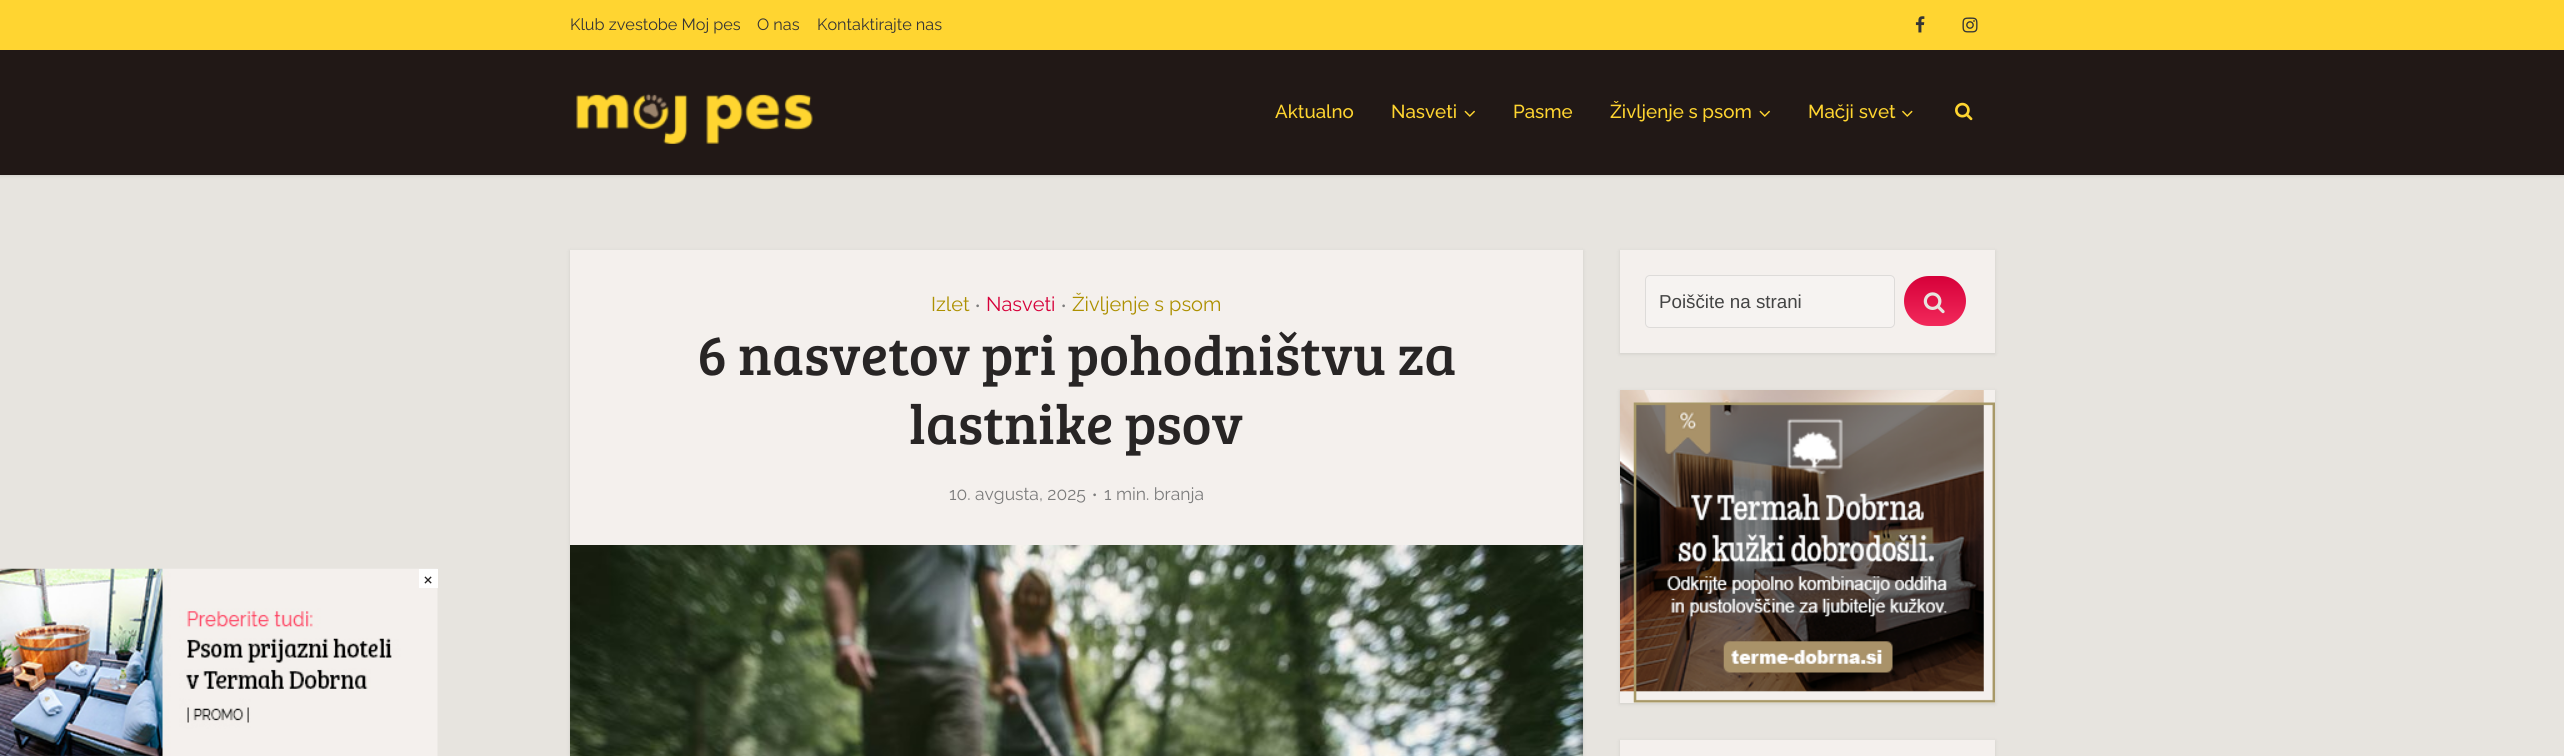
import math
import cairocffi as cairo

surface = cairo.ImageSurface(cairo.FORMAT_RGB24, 2564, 756)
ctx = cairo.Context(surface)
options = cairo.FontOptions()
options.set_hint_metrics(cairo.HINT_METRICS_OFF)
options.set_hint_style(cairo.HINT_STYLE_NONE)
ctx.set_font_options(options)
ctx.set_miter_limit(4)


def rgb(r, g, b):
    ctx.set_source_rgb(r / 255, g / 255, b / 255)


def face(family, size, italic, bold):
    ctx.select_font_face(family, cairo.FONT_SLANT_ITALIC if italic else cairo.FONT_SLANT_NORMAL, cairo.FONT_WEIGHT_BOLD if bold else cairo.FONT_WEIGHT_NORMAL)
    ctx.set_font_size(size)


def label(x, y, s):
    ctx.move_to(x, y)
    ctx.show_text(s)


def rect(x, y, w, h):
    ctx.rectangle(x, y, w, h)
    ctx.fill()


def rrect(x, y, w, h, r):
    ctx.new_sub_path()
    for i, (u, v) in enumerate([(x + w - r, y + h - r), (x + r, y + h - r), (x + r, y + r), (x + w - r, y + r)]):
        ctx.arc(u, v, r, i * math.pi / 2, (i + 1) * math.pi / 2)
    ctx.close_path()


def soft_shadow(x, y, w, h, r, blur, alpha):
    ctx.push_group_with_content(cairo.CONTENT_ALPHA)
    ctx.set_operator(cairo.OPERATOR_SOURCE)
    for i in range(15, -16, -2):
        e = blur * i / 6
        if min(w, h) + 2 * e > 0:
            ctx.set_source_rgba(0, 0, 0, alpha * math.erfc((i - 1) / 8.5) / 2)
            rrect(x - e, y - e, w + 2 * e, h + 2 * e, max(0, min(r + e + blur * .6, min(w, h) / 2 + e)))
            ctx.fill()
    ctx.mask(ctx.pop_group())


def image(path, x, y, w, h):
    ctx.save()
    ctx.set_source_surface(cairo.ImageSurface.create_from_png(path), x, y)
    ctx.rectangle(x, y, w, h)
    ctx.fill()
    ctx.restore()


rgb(231, 228, 223)
ctx.paint()
rgb(0, 0, 0)
soft_shadow(0, 1, 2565, 175, 0, 2, 0.1)
rgb(33, 24, 22)
rect(0, 50, 2564, 125)
rgb(255, 213, 49)
rect(0, 0, 2564, 50)
face('Raleway', 16.25, 0, 0)
rgb(53, 53, 53)
label(570, 30, 'Klub zvestobe Moj pes')
label(757, 30, 'O nas')
label(817, 30, 'Kontaktirajte nas')
image('image0.png', 1915, 16, 10, 17)
image('image1.png', 1962, 17, 16, 16)
image('image2.png', 576, 93, 237, 51)
face('Raleway Medium', 18.75, 0, 0)
rgb(255, 213, 48)
label(1275, 118, 'Aktualno')
label(1391, 118, 'Nasveti')
image('image3.png', 1464, 110, 11, 7)
label(1513, 118, 'Pasme')
label(1610, 118, 'Življenje s psom')
image('image3.png', 1759, 110, 11, 7)
label(1808, 118, 'Mačji svet')
image('image4.png', 1902, 110, 11, 7)
image('image5.png', 1955, 102, 18, 19)
rgb(0, 0, 0)
soft_shadow(570, 251, 1013, 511, 0, 2, 0.1)
rgb(244, 240, 237)
rect(570, 250, 1013, 295)
face('Raleway', 20, 0, 0)
rgb(173, 144, 0)
label(931, 311, 'Izlet')
face('Raleway', 15, 0, 0)
rgb(124, 124, 124)
label(975, 311, '•')
face('Raleway', 20, 0, 0)
rgb(214, 0, 57)
label(986, 311, 'Nasveti')
face('Raleway', 15, 0, 0)
rgb(124, 124, 124)
label(1061, 311, '•')
face('Raleway', 20, 0, 0)
rgb(173, 144, 0)
label(1072, 311, 'Življenje s psom')
face('Bree Serif', 56.25, 0, 0)
rgb(40, 37, 37)
label(697, 375, '6 nasvetov pri pohodništvu za')
label(909, 444, 'lastnike psov')
face('Raleway', 17.5, 0, 0)
rgb(124, 124, 124)
label(949, 500, '10. avgusta, 2025')
face('Raleway', 15, 0, 0)
label(1092, 500, '•')
face('Raleway', 17.5, 0, 0)
label(1104, 500, '1 min. branja')
image('image6.png', 570, 545, 1013, 211)
rgb(0, 0, 0)
soft_shadow(1620, 251, 375, 103, 0, 2, 0.1)
rgb(244, 240, 237)
rect(1620, 250, 375, 103)
rgb(246, 243, 241)
rrect(1645.5, 275.5, 249, 52, 4.5)
ctx.fill_preserve()
rgb(221, 219, 217)
ctx.set_line_width(1)
ctx.stroke()
face('Liberation Sans', 18.75, 0, 0)
rgb(68, 68, 68)
label(1659, 308, 'Poiščite na strani')
gradient = cairo.LinearGradient(1935, 276, 1935, 326)
gradient.add_color_stop_rgba(0, 0.839, 0, 0.224, 1)
gradient.add_color_stop_rgba(1, 0.949, 0.161, 0.357, 1)
ctx.set_source(gradient)
rrect(1904, 276, 62, 50, 25)
ctx.fill()
image('image7.png', 1923, 292, 22, 22)
rgb(0, 0, 0)
soft_shadow(1620, 391, 375, 313, 0, 2, 0.1)
rgb(244, 240, 237)
rect(1620, 390, 375, 313)
image('image8.png', 1620, 390, 375, 313)
rgb(0, 0, 0)
soft_shadow(1620, 741, 375, 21, 0, 2, 0.1)
rgb(244, 240, 237)
rect(1620, 740, 375, 16)
image('image9.png', 0, 568, 438, 188)
rgb(255, 255, 255)
rect(419, 569, 19, 19)
face('Raleway', 22, 0, 0)
rgb(40, 37, 37)
label(423, 586, '×')
surface.write_to_png('render.png')
